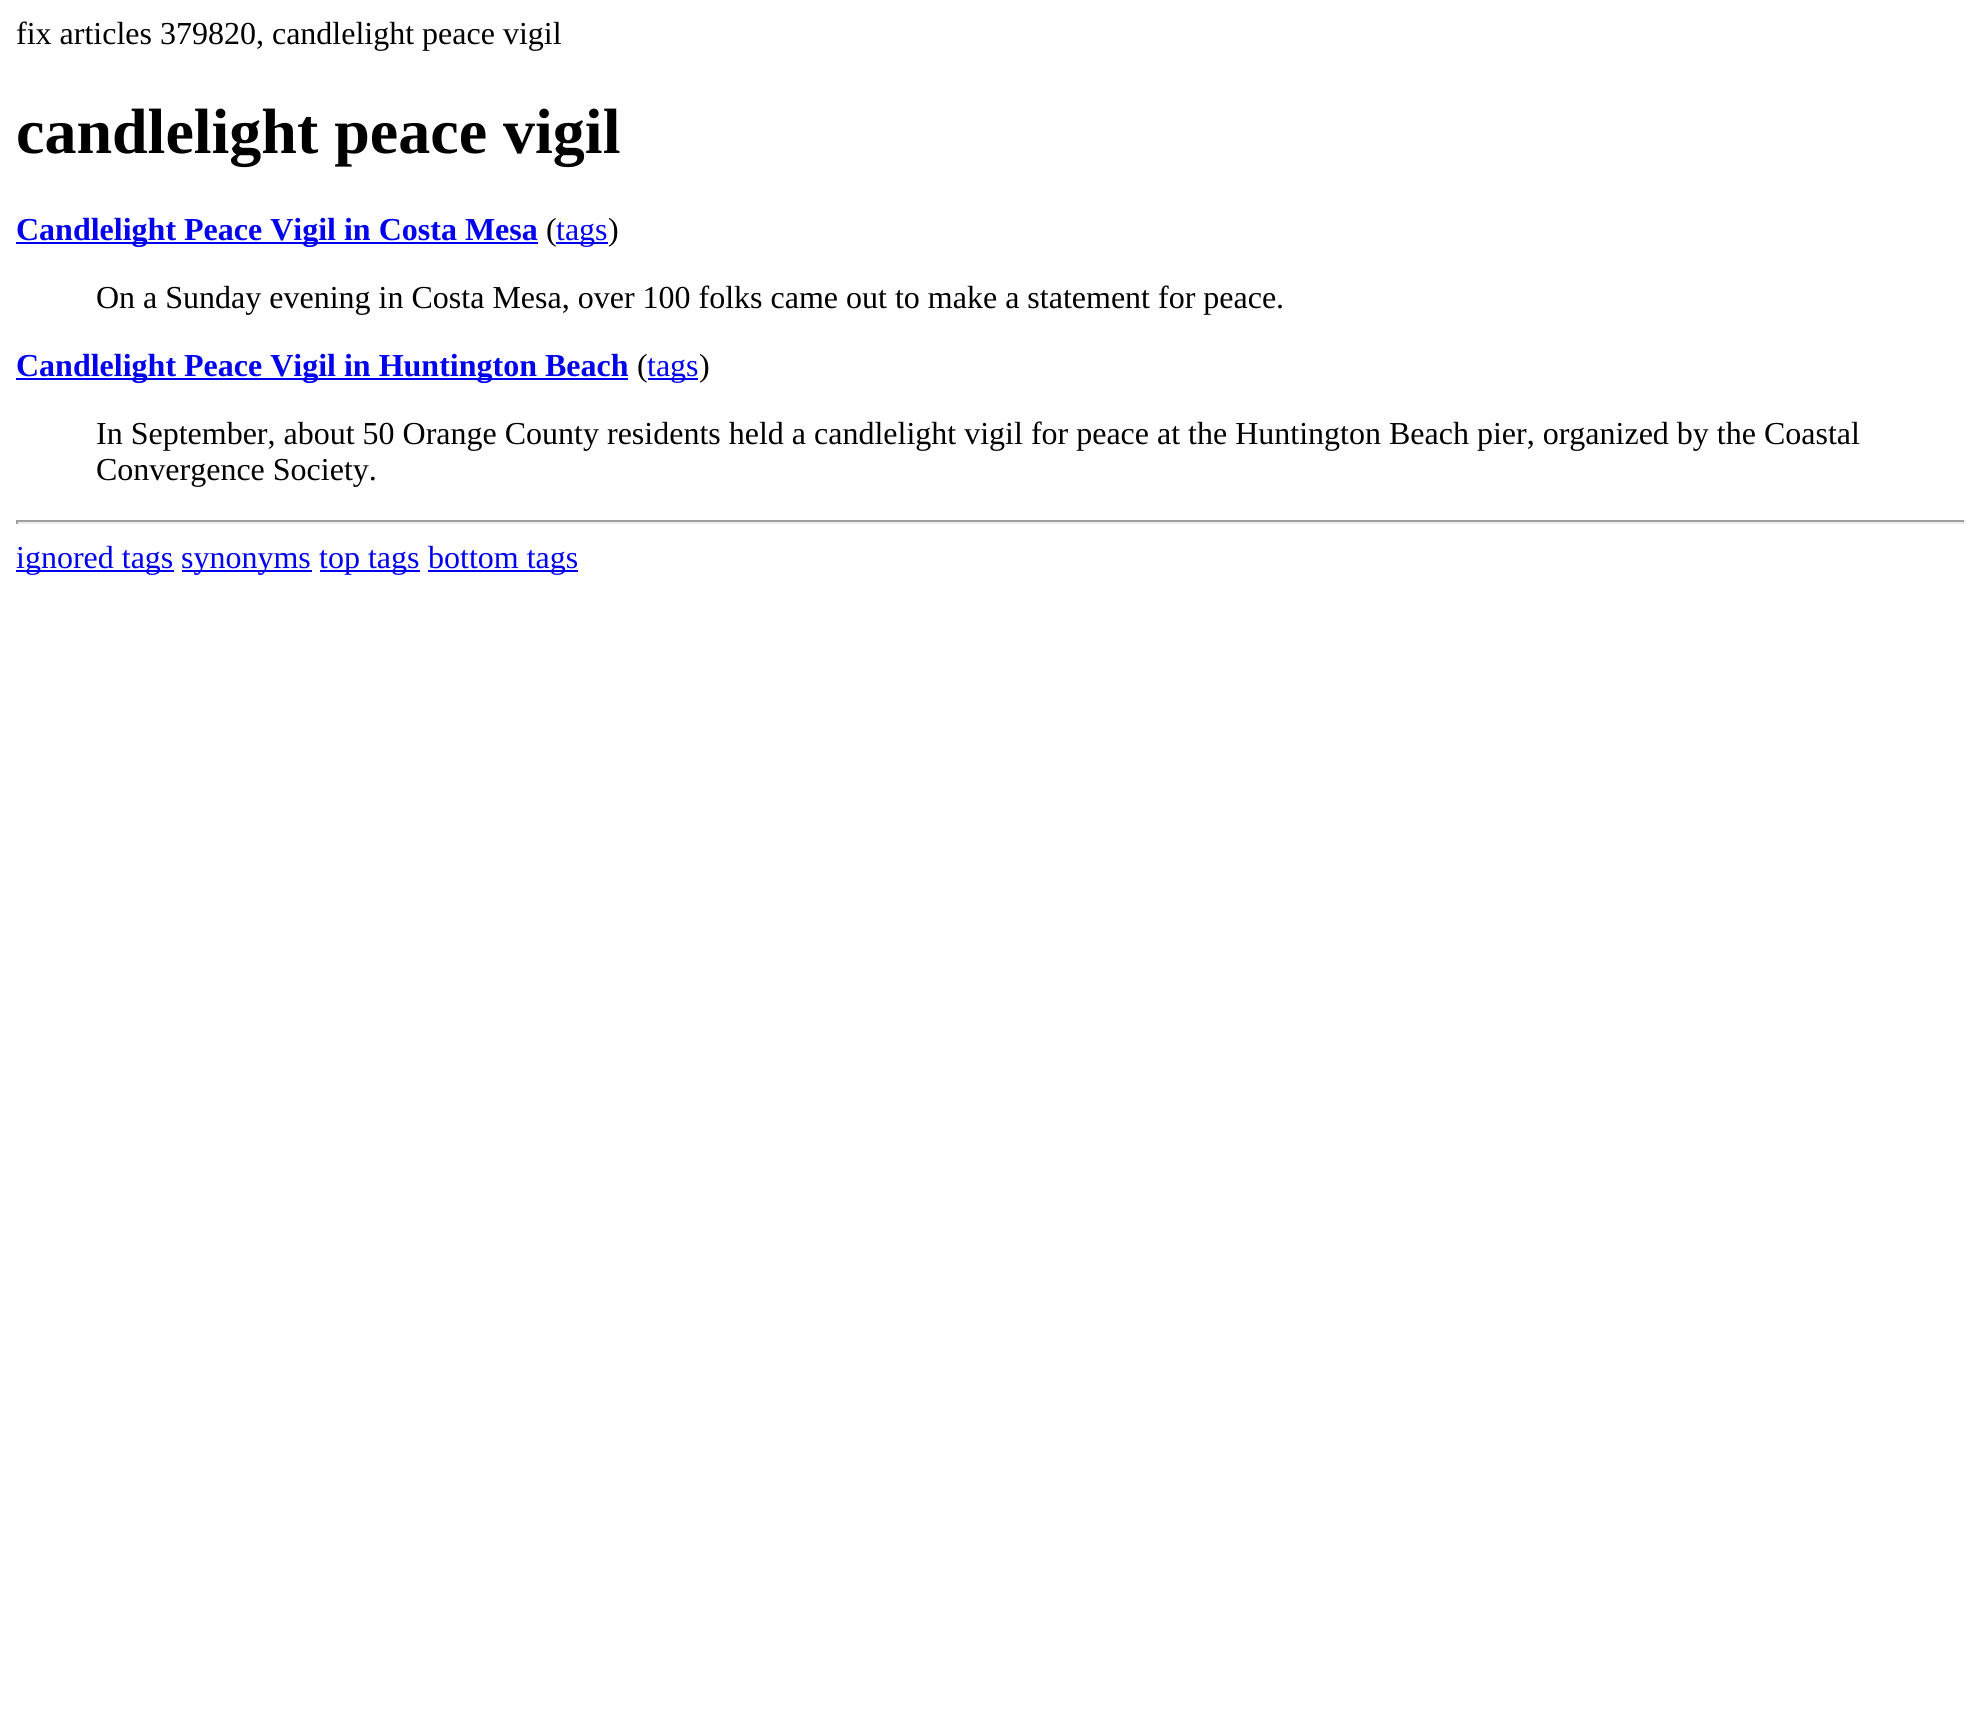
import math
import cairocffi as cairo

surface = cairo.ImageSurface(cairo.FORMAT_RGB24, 1981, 1729)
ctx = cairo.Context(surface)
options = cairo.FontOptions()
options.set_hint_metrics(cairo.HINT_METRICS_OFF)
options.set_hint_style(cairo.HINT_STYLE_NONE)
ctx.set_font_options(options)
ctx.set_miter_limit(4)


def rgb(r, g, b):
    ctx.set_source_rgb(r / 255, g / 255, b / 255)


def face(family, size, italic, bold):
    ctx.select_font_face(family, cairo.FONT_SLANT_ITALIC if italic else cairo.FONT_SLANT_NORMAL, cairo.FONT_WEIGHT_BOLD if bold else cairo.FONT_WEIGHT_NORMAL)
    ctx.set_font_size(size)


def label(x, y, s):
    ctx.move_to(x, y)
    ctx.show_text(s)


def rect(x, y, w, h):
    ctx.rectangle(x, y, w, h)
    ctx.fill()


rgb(255, 255, 255)
ctx.paint()
face('Liberation Serif', 32, 0, 0)
rgb(0, 0, 0)
label(16, 44, 'fix articles 379820, candlelight peace vigil')
face('Liberation Serif', 64, 0, 1)
label(16, 153, 'candlelight peace vigil')
rgb(0, 0, 238)
rect(16, 242, 522, 2)
face('Liberation Serif', 32, 0, 1)
label(16, 240, 'Candlelight Peace Vigil in Costa Mesa')
face('Liberation Serif', 32, 0, 0)
rgb(0, 0, 0)
label(546, 240, '(')
rgb(0, 0, 238)
rect(556, 242, 52, 2)
label(556, 240, 'tags')
rgb(0, 0, 0)
label(608, 240, ')')
label(96, 308, 'On a Sunday evening in Costa Mesa, over 100 folks came out to make a statement for peace.')
rgb(0, 0, 238)
rect(16, 378, 612, 2)
face('Liberation Serif', 32, 0, 1)
label(16, 376, 'Candlelight Peace Vigil in Huntington Beach')
face('Liberation Serif', 32, 0, 0)
rgb(0, 0, 0)
label(637, 376, '(')
rgb(0, 0, 238)
rect(648, 378, 50, 2)
label(647, 376, 'tags')
rgb(0, 0, 0)
label(699, 376, ')')
label(96, 444, 'In September, about 50 Orange County residents held a candlelight vigil for peace at the Huntington Beach pier, organized by the Coastal')
label(96, 480, 'Convergence Society.')
rgb(159, 159, 159)
rect(16, 520, 1950, 2)
rgb(238, 238, 238)
rect(1964, 520, 2, 4)
rect(16, 522, 1950, 2)
rgb(159, 159, 159)
rect(16, 520, 2, 4)
rgb(0, 0, 238)
rect(16, 570, 158, 2)
label(16, 568, 'ignored tags')
rect(182, 570, 130, 2)
label(181, 568, 'synonyms')
rect(320, 570, 100, 2)
label(319, 568, 'top tags')
rect(428, 570, 150, 2)
label(428, 568, 'bottom tags')
surface.write_to_png('render.png')
